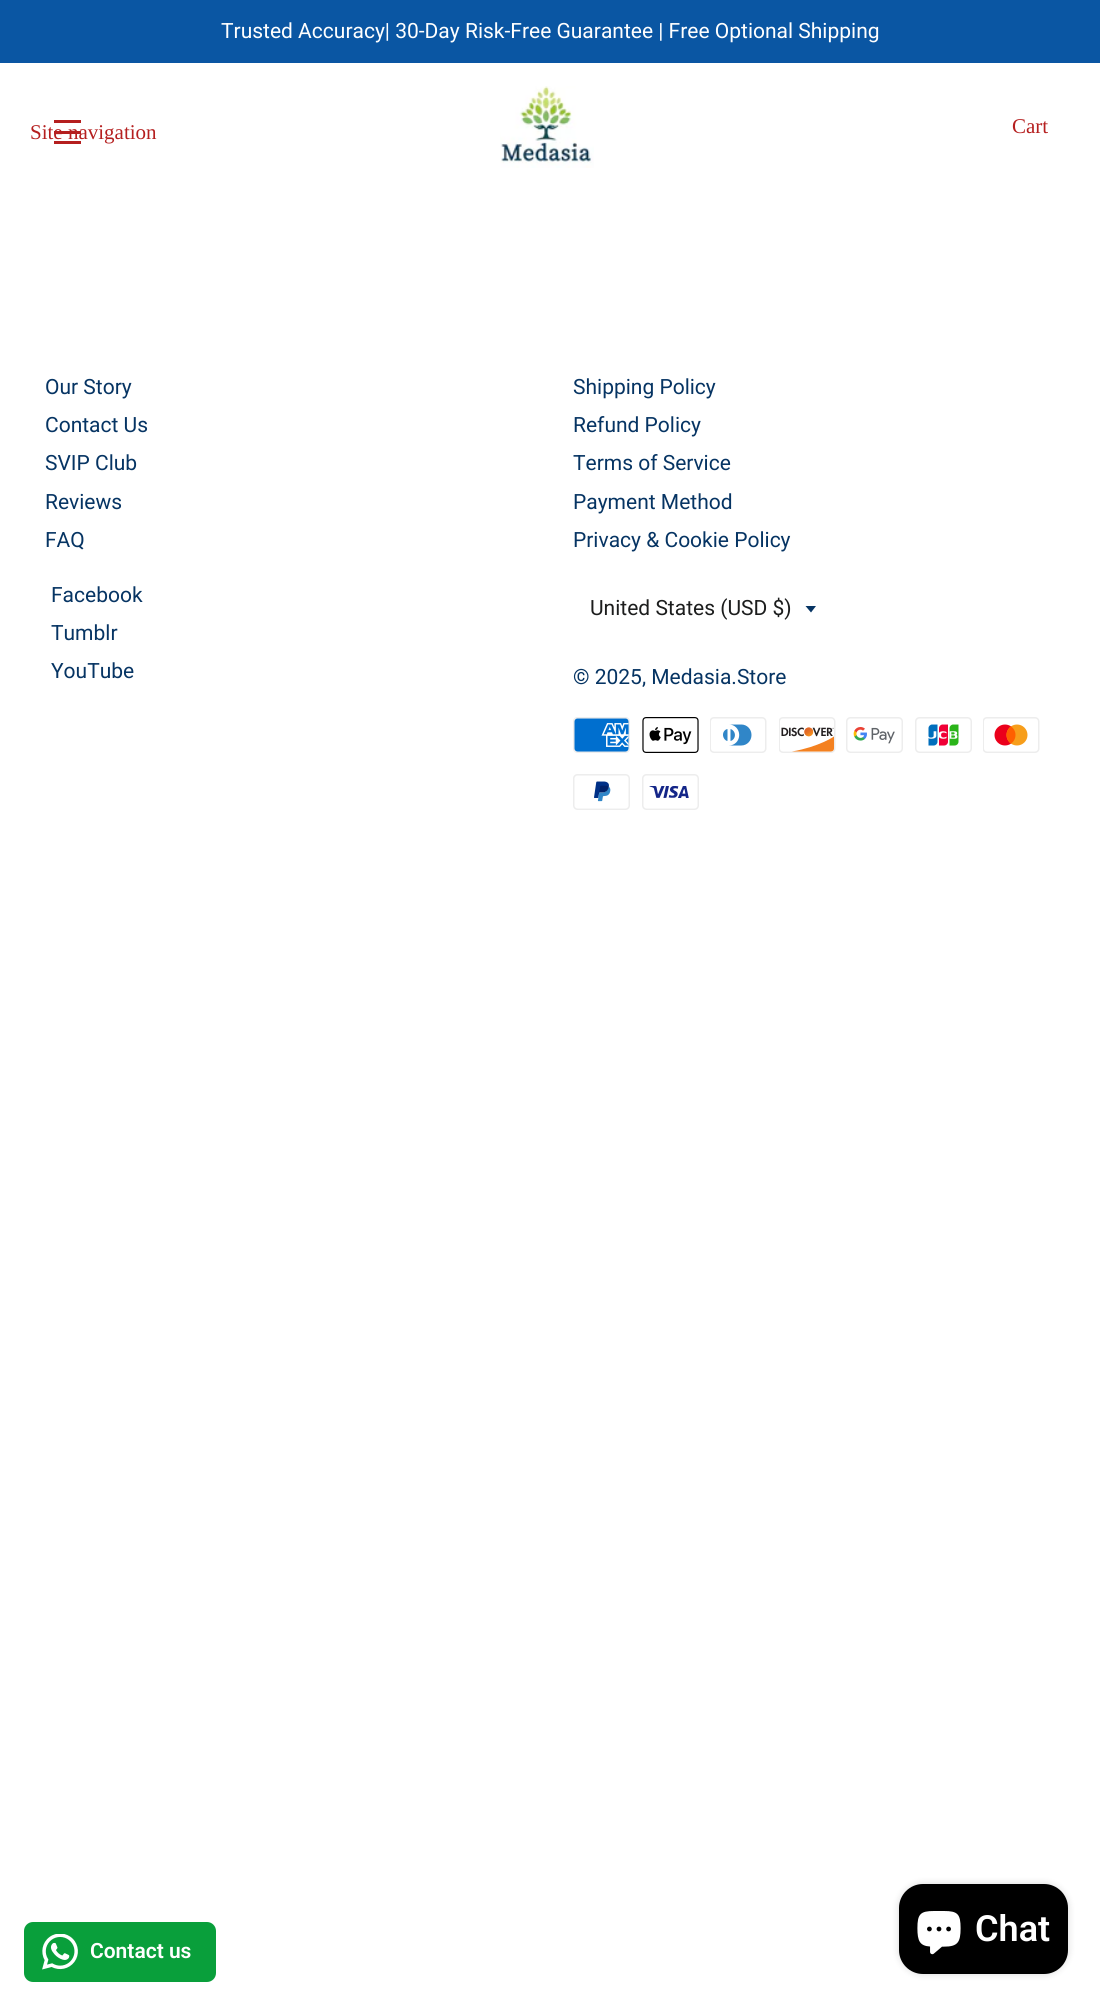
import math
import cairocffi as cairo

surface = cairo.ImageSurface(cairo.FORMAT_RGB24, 1100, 2005)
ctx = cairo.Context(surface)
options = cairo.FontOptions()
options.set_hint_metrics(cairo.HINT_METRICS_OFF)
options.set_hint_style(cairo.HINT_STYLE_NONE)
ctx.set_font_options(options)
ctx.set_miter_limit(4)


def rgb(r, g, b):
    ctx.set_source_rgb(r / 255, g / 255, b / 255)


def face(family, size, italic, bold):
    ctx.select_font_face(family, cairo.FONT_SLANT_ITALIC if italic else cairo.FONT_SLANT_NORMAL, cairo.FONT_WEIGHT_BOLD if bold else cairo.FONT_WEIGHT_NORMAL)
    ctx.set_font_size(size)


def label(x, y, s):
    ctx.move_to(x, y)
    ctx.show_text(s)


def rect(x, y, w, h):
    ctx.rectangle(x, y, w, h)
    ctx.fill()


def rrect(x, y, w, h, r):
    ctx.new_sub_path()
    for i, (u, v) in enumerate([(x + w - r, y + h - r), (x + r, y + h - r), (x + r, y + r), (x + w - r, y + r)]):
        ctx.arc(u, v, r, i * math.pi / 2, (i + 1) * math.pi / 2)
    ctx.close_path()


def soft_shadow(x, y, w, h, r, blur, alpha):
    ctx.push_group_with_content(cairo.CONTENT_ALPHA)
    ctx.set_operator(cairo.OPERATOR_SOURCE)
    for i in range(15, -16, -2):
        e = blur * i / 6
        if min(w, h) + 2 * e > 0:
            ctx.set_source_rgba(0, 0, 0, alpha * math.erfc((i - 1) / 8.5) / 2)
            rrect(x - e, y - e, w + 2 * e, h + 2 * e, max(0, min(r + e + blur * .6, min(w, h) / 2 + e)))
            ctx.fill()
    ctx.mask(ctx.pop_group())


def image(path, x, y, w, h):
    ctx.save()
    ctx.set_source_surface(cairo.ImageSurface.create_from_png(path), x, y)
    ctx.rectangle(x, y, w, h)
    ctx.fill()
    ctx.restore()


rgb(255, 255, 255)
ctx.paint()
rgb(10, 86, 163)
rect(0, 0, 1100, 63)
face('Roboto', 21, 0, 0)
rgb(255, 255, 255)
label(221, 38, 'Trusted Accuracy| 30-Day Risk-Free Guarantee | Free Optional Shipping')
rgb(181, 31, 31)
rect(54, 120, 27, 3)
face('Liberation Serif', 21, 0, 0)
label(30, 139, 'Site navigation')
rect(54, 131, 27, 3)
rect(54, 141, 27, 3)
image('image0.png', 500, 86, 94, 82)
label(1012, 133, 'Cart')
face('Roboto', 21, 0, 0)
rgb(6, 52, 99)
label(45, 394, 'Our Story')
label(45, 432, 'Contact Us')
label(45, 470, 'SVIP Club')
label(45, 509, 'Reviews')
label(45, 547, 'FAQ')
label(573, 394, 'Shipping Policy')
label(573, 432, 'Refund Policy')
label(573, 470, 'Terms of Service')
label(573, 509, 'Payment Method')
label(573, 547, 'Privacy & Cookie Policy')
label(51, 602, 'Facebook')
label(51, 640, 'Tumblr')
label(51, 678, 'YouTube')
ctx.new_path()
ctx.move_to(805.5, 606)
ctx.line_to(811, 612.5)
ctx.line_to(816, 606)
ctx.close_path()
ctx.fill()
rgb(28, 29, 29)
label(590, 615, 'United States (USD $)')
rgb(6, 52, 99)
label(573, 684, '© 2025, Medasia.Store')
image('image1.png', 573, 717, 57, 36)
image('image2.png', 642, 717, 57, 36)
image('image3.png', 710, 717, 57, 36)
image('image4.png', 779, 717, 57, 36)
image('image5.png', 846, 717, 57, 36)
image('image6.png', 915, 717, 57, 36)
image('image7.png', 983, 717, 57, 36)
image('image8.png', 573, 774, 57, 36)
image('image9.png', 642, 774, 57, 36)
rgb(0, 0, 0)
soft_shadow(899, 1884, 169, 90, 24, 4, 0.15)
rgb(0, 0, 0)
rrect(899, 1884, 169, 90, 24)
ctx.fill()
image('image10.png', 917, 1911, 44, 44)
face('Roboto SemiBold', 36, 0, 0)
rgb(255, 255, 255)
label(975, 1941, 'Chat')
rgb(9, 159, 59)
rrect(24, 1922, 192, 60, 9)
ctx.fill()
image('image11.png', 42, 1934, 36, 36)
face('Roboto SemiBold', 21, 0, 0)
rgb(255, 255, 255)
label(90, 1958, 'Contact us')
surface.write_to_png('render.png')
